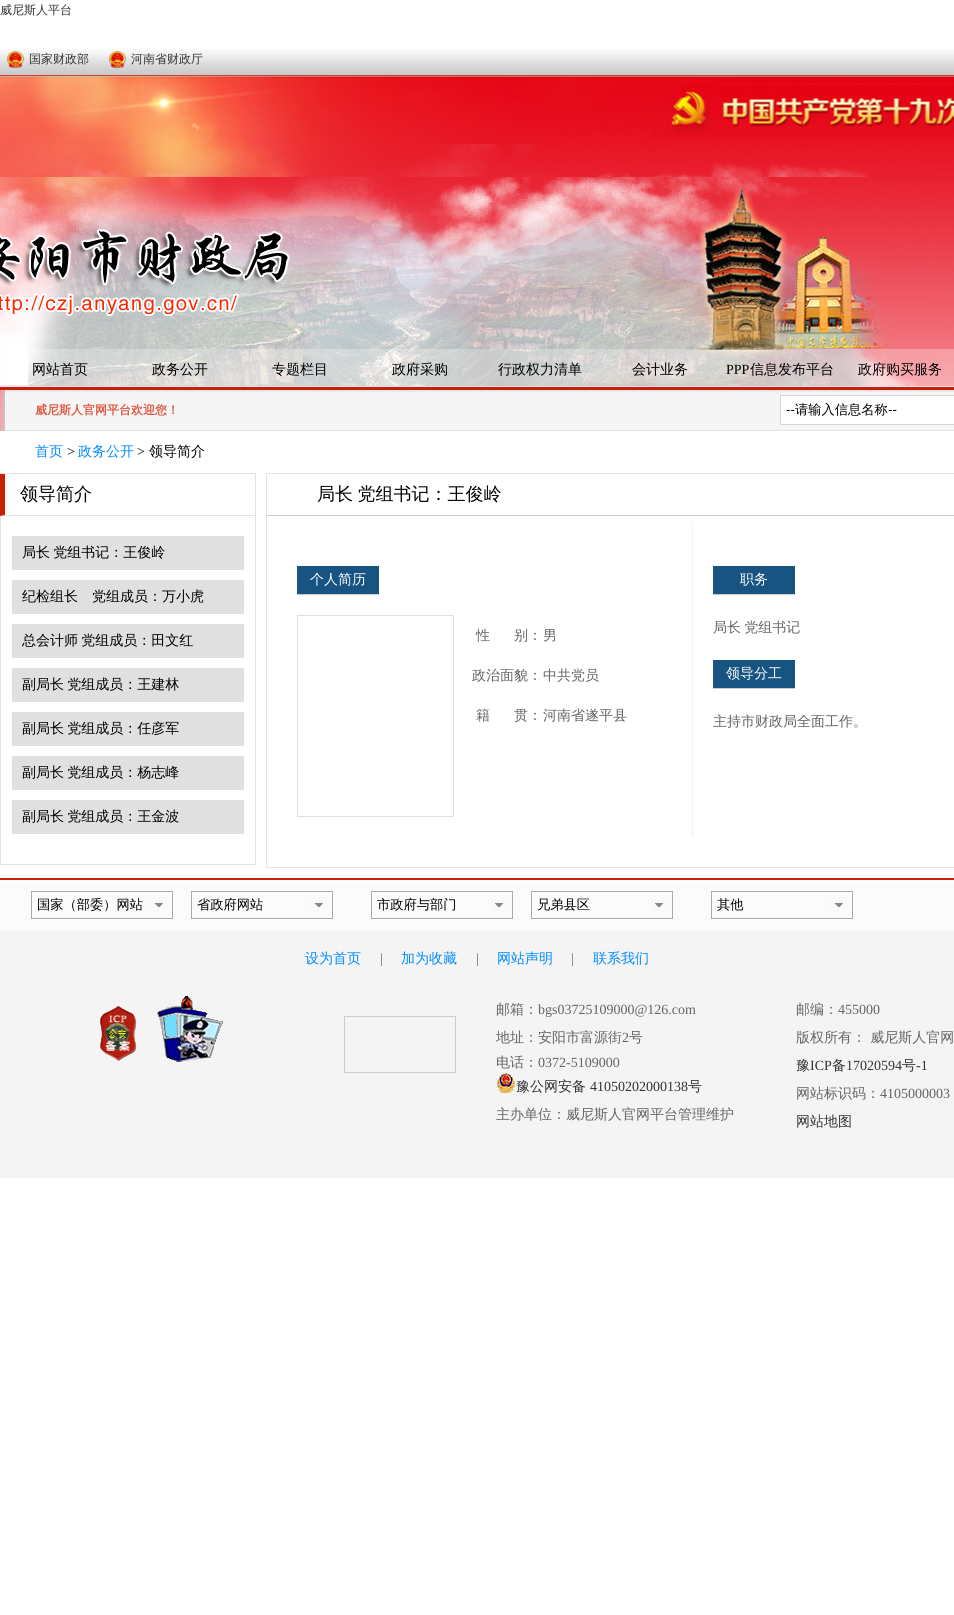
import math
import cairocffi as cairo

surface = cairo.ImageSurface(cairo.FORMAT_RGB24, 954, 1615)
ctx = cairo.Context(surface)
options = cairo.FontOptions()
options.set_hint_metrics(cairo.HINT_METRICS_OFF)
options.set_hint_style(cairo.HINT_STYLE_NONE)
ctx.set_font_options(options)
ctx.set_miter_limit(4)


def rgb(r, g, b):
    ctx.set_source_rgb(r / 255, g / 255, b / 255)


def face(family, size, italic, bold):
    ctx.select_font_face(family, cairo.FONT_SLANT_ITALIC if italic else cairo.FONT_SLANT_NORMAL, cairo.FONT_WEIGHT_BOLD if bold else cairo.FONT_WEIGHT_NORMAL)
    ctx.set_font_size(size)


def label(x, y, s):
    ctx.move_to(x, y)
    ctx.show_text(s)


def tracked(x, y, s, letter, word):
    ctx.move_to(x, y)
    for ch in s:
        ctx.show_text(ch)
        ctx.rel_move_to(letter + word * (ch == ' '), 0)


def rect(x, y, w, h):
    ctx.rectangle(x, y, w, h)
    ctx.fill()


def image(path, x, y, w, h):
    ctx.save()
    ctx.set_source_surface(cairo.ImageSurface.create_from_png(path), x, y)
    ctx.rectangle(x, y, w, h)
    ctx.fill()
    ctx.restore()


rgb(255, 255, 255)
ctx.paint()
face('WenQuanYi Zen Hei Medium', 12, 0, 0)
rgb(51, 51, 51)
label(0, 14, '威尼斯人平台')
image('image0.png', 0, 49, 954, 337)
image('image1.png', 7, 51, 17, 17)
label(29, 63, '国家财政部')
image('image1.png', 109, 51, 17, 17)
label(131, 63, '河南省财政厅')
image('image2.png', 0, 76, 954, 101)
image('image3.png', 0, 177, 934, 209)
image('image4.png', 0, 349, 954, 41)
face('WenQuanYi Zen Hei Medium', 14, 0, 0)
rgb(0, 0, 0)
label(32, 374, '网站首页')
label(152, 374, '政务公开')
label(272, 374, '专题栏目')
label(392, 374, '政府采购')
label(498, 374, '行政权力清单')
label(632, 374, '会计业务')
face('Liberation Serif', 14, 0, 0)
label(726, 374, 'PPP')
face('WenQuanYi Zen Hei Medium', 14, 0, 0)
label(750, 374, '信息发布平台')
label(858, 374, '政府购买服务')
image('image5.png', 5, 390, 949, 41)
image('image6.png', 0, 390, 5, 41)
face('WenQuanYi Zen Hei', 12, 0, 1)
rgb(221, 89, 66)
label(35, 414, '威尼斯人官网平台欢迎您！')
rgb(255, 255, 255)
ctx.rectangle(780.5, 395.5, 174, 29)
ctx.fill_preserve()
rgb(213, 213, 213)
ctx.set_line_width(1)
ctx.stroke()
face('Liberation Sans', 13.25, 0, 0)
rgb(0, 0, 0)
label(786, 414, '--')
face('WenQuanYi Zen Hei Medium', 13.25, 0, 0)
label(795, 414, '请输入信息名称')
face('Liberation Sans', 13.25, 0, 0)
label(888, 414, '--')
face('WenQuanYi Zen Hei Medium', 14, 0, 0)
rgb(3, 139, 255)
label(35, 456, '首页')
face('Liberation Serif', 14, 0, 0)
rgb(0, 0, 0)
label(67, 456, '>')
face('WenQuanYi Zen Hei Medium', 14, 0, 0)
rgb(3, 139, 255)
label(78, 456, '政务公开')
face('Liberation Serif', 14, 0, 0)
rgb(0, 0, 0)
label(137, 456, '>')
face('WenQuanYi Zen Hei Medium', 14, 0, 0)
label(149, 456, '领导简介')
rgb(227, 227, 227)
rect(0, 473, 256, 1)
rect(255, 473, 1, 392)
rect(0, 864, 256, 1)
ctx.new_path()
ctx.move_to(255, 516)
ctx.line_to(0, 516)
ctx.line_to(5, 515)
ctx.line_to(255, 515)
ctx.close_path()
ctx.fill()
rgb(201, 30, 0)
ctx.new_path()
ctx.move_to(0, 516)
ctx.line_to(0, 474)
ctx.line_to(5, 474)
ctx.line_to(5, 515)
ctx.close_path()
ctx.fill()
face('WenQuanYi Zen Hei Medium', 18, 0, 0)
rgb(0, 0, 0)
label(20, 500, '领导简介')
rgb(227, 227, 227)
rect(0, 516, 1, 348)
rgb(224, 224, 224)
rect(12, 536, 232, 34)
face('WenQuanYi Zen Hei Medium', 14, 0, 0)
rgb(0, 0, 0)
tracked(22, 557, '局长 党组书记：王俊岭', 0, -1)
rgb(224, 224, 224)
rect(12, 580, 232, 34)
rgb(0, 0, 0)
label(22, 601, '纪检组长　党组成员：万小虎')
rgb(224, 224, 224)
rect(12, 624, 232, 34)
rgb(0, 0, 0)
tracked(22, 645, '总会计师 党组成员：田文红', 0, -1)
rgb(224, 224, 224)
rect(12, 668, 232, 34)
rgb(0, 0, 0)
tracked(22, 689, '副局长 党组成员：王建林', 0, -1)
rgb(224, 224, 224)
rect(12, 712, 232, 34)
rgb(0, 0, 0)
tracked(22, 733, '副局长 党组成员：任彦军', 0, -1)
rgb(224, 224, 224)
rect(12, 756, 232, 34)
rgb(0, 0, 0)
tracked(22, 777, '副局长 党组成员：杨志峰', 0, -1)
rgb(224, 224, 224)
rect(12, 800, 232, 34)
rgb(0, 0, 0)
tracked(22, 821, '副局长 党组成员：王金波', 0, -1)
ctx.rectangle(266.5, 473.5, 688, 394)
rgb(227, 227, 227)
ctx.stroke()
rgb(204, 204, 204)
rect(267, 515, 687, 1)
face('WenQuanYi Zen Hei Medium', 18, 0, 0)
rgb(0, 0, 0)
tracked(317, 500, '局长 党组书记：王俊岭', 0, -1)
ctx.new_path()
ctx.move_to(692.5, 526)
ctx.line_to(692.5, 837)
rgb(227, 227, 227)
ctx.set_dash([1, 1])
ctx.stroke()
rgb(23, 84, 129)
rect(297, 566, 82, 28)
rgb(204, 204, 204)
rect(297, 594, 82, 1)
face('WenQuanYi Zen Hei Medium', 14, 0, 0)
rgb(255, 255, 255)
label(310, 584, '个人简历')
rgb(223, 223, 223)
rect(297, 615, 157, 1)
rect(453, 615, 1, 202)
rect(297, 816, 157, 1)
rect(297, 615, 1, 202)
rgb(100, 100, 100)
label(476, 640, '性')
label(514, 640, '别：')
label(543, 640, '男')
label(472, 680, '政治面貌：')
label(543, 680, '中共党员')
label(476, 720, '籍')
label(514, 720, '贯：')
label(543, 720, '河南省遂平县')
rgb(23, 84, 129)
rect(713, 566, 82, 28)
rgb(204, 204, 204)
rect(713, 594, 82, 1)
rgb(255, 255, 255)
label(740, 584, '职务')
rgb(100, 100, 100)
tracked(713, 632, '局长 党组书记', 0, -1)
rgb(23, 84, 129)
rect(713, 660, 82, 28)
rgb(204, 204, 204)
rect(713, 688, 82, 1)
rgb(255, 255, 255)
label(726, 678, '领导分工')
rgb(100, 100, 100)
label(713, 726, '主持市财政局全面工作。')
rgb(203, 30, 0)
rect(0, 878, 954, 2)
rgb(251, 251, 251)
rect(0, 881, 954, 50)
image('image7.png', 149, 897, 19, 15)
ctx.rectangle(31.5, 891.5, 141, 27)
rgb(170, 170, 170)
ctx.set_dash([])
ctx.stroke()
face('WenQuanYi Zen Hei Medium', 13.25, 0, 0)
rgb(0, 0, 0)
label(37, 909, '国家（部委）网站')
image('image7.png', 309, 897, 19, 15)
ctx.rectangle(191.5, 891.5, 141, 27)
rgb(170, 170, 170)
ctx.stroke()
rgb(0, 0, 0)
label(197, 909, '省政府网站')
image('image7.png', 489, 897, 19, 15)
ctx.rectangle(371.5, 891.5, 141, 27)
rgb(170, 170, 170)
ctx.stroke()
rgb(0, 0, 0)
label(377, 909, '市政府与部门')
image('image7.png', 649, 897, 19, 15)
ctx.rectangle(531.5, 891.5, 141, 27)
rgb(170, 170, 170)
ctx.stroke()
rgb(0, 0, 0)
label(537, 909, '兄弟县区')
image('image7.png', 829, 897, 19, 15)
ctx.rectangle(711.5, 891.5, 141, 27)
rgb(170, 170, 170)
ctx.stroke()
rgb(0, 0, 0)
label(717, 909, '其他')
rgb(244, 244, 244)
rect(0, 931, 954, 247)
face('WenQuanYi Zen Hei Medium', 14, 0, 0)
rgb(3, 139, 255)
label(305, 963, '设为首页')
face('Liberation Serif', 14, 0, 0)
rgb(100, 100, 100)
label(380, 963, '|')
face('WenQuanYi Zen Hei Medium', 14, 0, 0)
rgb(3, 139, 255)
label(401, 963, '加为收藏')
face('Liberation Serif', 14, 0, 0)
rgb(100, 100, 100)
label(476, 963, '|')
face('WenQuanYi Zen Hei Medium', 14, 0, 0)
rgb(3, 139, 255)
label(497, 963, '网站声明')
face('Liberation Serif', 14, 0, 0)
rgb(100, 100, 100)
label(571, 963, '|')
face('WenQuanYi Zen Hei Medium', 14, 0, 0)
rgb(3, 139, 255)
label(593, 963, '联系我们')
image('image8.png', 100, 1006, 36, 55)
image('image9.png', 157, 996, 66, 66)
ctx.rectangle(344.5, 1016.5, 111, 56)
rgb(204, 204, 204)
ctx.stroke()
rgb(100, 100, 100)
label(496, 1014, '邮箱：')
face('Liberation Serif', 14, 0, 0)
label(538, 1014, 'bgs03725109000@126.com')
face('WenQuanYi Zen Hei Medium', 14, 0, 0)
label(496, 1042, '地址：安阳市富源街')
face('Liberation Serif', 14, 0, 0)
label(622, 1042, '2')
face('WenQuanYi Zen Hei Medium', 14, 0, 0)
label(629, 1042, '号')
label(496, 1067, '电话：')
face('Liberation Serif', 14, 0, 0)
label(538, 1067, '0372-5109000')
image('image10.png', 497, 1073, 18, 20)
face('WenQuanYi Zen Hei Medium', 14, 0, 0)
rgb(51, 51, 51)
label(516, 1091, '豫公网安备')
face('Liberation Serif', 14, 0, 0)
label(590, 1091, '41050202000138')
face('WenQuanYi Zen Hei Medium', 14, 0, 0)
label(688, 1091, '号')
rgb(100, 100, 100)
label(496, 1119, '主办单位：威尼斯人官网平台管理维护')
label(796, 1014, '邮编：')
face('Liberation Serif', 14, 0, 0)
label(838, 1014, '455000')
face('WenQuanYi Zen Hei Medium', 14, 0, 0)
label(796, 1042, '版权所有： 威尼斯人官网')
rgb(51, 51, 51)
label(796, 1070, '豫')
face('Liberation Serif', 14, 0, 0)
label(810, 1070, 'ICP')
face('WenQuanYi Zen Hei Medium', 14, 0, 0)
label(832, 1070, '备')
face('Liberation Serif', 14, 0, 0)
label(846, 1070, '17020594')
face('WenQuanYi Zen Hei Medium', 14, 0, 0)
label(902, 1070, '号')
face('Liberation Serif', 14, 0, 0)
label(916, 1070, '-1')
face('WenQuanYi Zen Hei Medium', 14, 0, 0)
rgb(100, 100, 100)
label(796, 1098, '网站标识码：')
face('Liberation Serif', 14, 0, 0)
label(880, 1098, '4105000003')
face('WenQuanYi Zen Hei Medium', 14, 0, 0)
rgb(51, 51, 51)
label(796, 1126, '网站地图')
surface.write_to_png('render.png')
